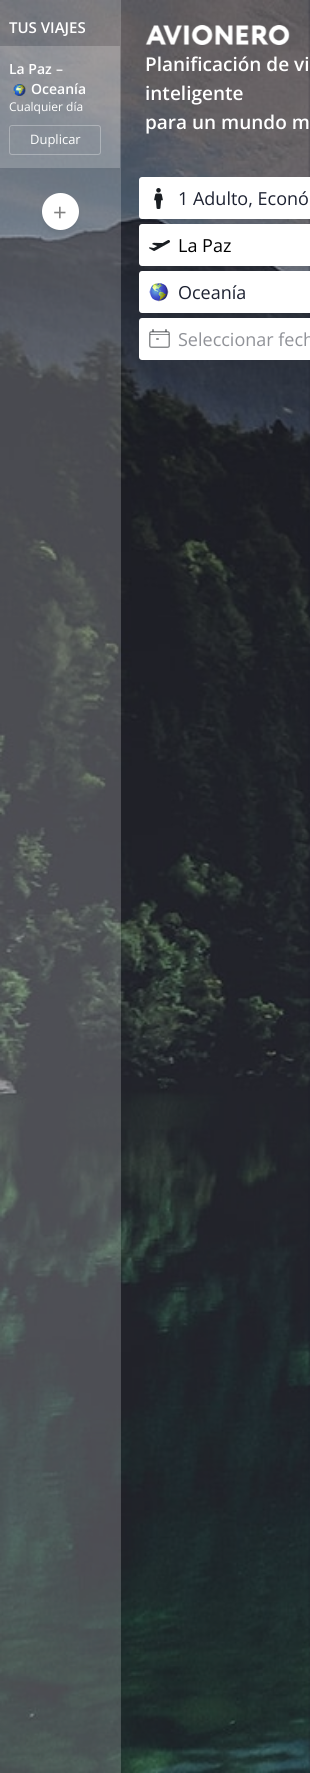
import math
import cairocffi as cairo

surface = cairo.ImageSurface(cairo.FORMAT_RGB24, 310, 1773)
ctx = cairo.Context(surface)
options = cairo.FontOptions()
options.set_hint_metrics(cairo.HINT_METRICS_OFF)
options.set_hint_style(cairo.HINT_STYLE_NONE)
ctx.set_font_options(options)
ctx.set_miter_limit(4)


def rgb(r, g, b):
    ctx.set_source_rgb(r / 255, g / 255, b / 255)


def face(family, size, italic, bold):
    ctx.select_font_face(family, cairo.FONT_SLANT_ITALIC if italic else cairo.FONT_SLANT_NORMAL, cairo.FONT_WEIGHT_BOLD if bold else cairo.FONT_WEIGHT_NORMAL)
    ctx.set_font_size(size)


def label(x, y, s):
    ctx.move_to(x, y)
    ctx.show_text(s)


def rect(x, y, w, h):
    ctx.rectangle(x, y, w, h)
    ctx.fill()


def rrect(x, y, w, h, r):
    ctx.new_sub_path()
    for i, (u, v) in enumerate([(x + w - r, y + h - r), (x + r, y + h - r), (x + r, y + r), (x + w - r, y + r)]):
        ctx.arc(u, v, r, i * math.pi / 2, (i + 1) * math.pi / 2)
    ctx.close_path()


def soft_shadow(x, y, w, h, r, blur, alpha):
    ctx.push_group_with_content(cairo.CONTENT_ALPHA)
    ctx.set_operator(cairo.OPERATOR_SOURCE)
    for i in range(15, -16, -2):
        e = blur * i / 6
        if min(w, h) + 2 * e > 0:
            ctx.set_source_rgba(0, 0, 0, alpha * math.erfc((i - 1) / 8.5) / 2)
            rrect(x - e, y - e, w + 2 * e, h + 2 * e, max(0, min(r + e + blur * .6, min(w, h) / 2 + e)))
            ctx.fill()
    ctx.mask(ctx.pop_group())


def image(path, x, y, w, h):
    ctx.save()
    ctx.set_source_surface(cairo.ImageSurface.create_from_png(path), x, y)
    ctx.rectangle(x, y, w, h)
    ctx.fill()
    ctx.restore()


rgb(27, 29, 43)
ctx.paint()
image('image0.png', 0, 0, 310, 1773)
ctx.set_source_rgba(1, 1, 1, 0.2)
rect(0, 0, 120, 1773)
face('Open Sans SemiBold', 15, 0, 0)
rgb(255, 255, 255)
label(9, 33, 'TUS VIAJES')
ctx.set_source_rgba(1, 1, 1, 0.2)
rect(0, 46, 120, 122)
face('Open Sans SemiBold', 14, 0, 0)
rgb(255, 255, 255)
label(9, 74, 'La Paz')
label(56, 74, '–')
image('image1.png', 13, 84, 13, 12)
label(31, 94, 'Oceanía')
face('Open Sans', 12, 0, 0)
label(9, 111, 'Cualquier día')
rrect(9.5, 125.5, 91, 29, 2.5)
ctx.set_source_rgba(1, 1, 1, 0.3)
ctx.set_line_width(1)
ctx.stroke()
face('Open Sans', 13, 0, 0)
rgb(255, 255, 255)
label(30, 144, 'Duplicar')
rgb(0, 0, 0)
soft_shadow(42, 197, 37, 37, 18.5, 2, 0.07)
rgb(255, 255, 255)
ctx.arc(60.5, 211.5, 18.5, 0, 2 * math.pi)
ctx.fill()
face('Open Sans', 24, 0, 0)
rgb(128, 128, 128)
label(53, 221, '+')
ctx.set_source_rgba(1, 1, 1, 0.2)
rect(120, 0, 1, 1773)
image('image2.png', 145, 25, 145, 20)
face('Open Sans SemiBold', 19, 0, 0)
rgb(255, 255, 255)
label(145, 71, 'Planificación de vi')
label(145, 100, 'inteligente')
label(145, 129, 'para un mundo m')
rrect(139, 177, 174, 42, 3)
ctx.fill()
image('image3.png', 154, 188, 9, 21)
face('Open Sans', 18, 0, 0)
rgb(29, 34, 50)
label(178, 205, '1 Adulto, Econó')
rgb(255, 255, 255)
rrect(139, 224, 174, 42, 3)
ctx.fill()
image('image4.png', 149, 240, 21, 11)
rgb(0, 0, 0)
label(178, 252, 'La Paz')
rgb(255, 255, 255)
rrect(139, 271, 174, 42, 3)
ctx.fill()
image('image5.png', 149, 283, 20, 19)
rgb(29, 34, 50)
label(178, 299, 'Oceanía')
rgb(255, 255, 255)
rrect(139, 318, 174, 42, 3)
ctx.fill()
image('image6.png', 149, 329, 21, 19)
rgb(144, 146, 152)
label(178, 346, 'Seleccionar fech')
surface.write_to_png('render.png')
